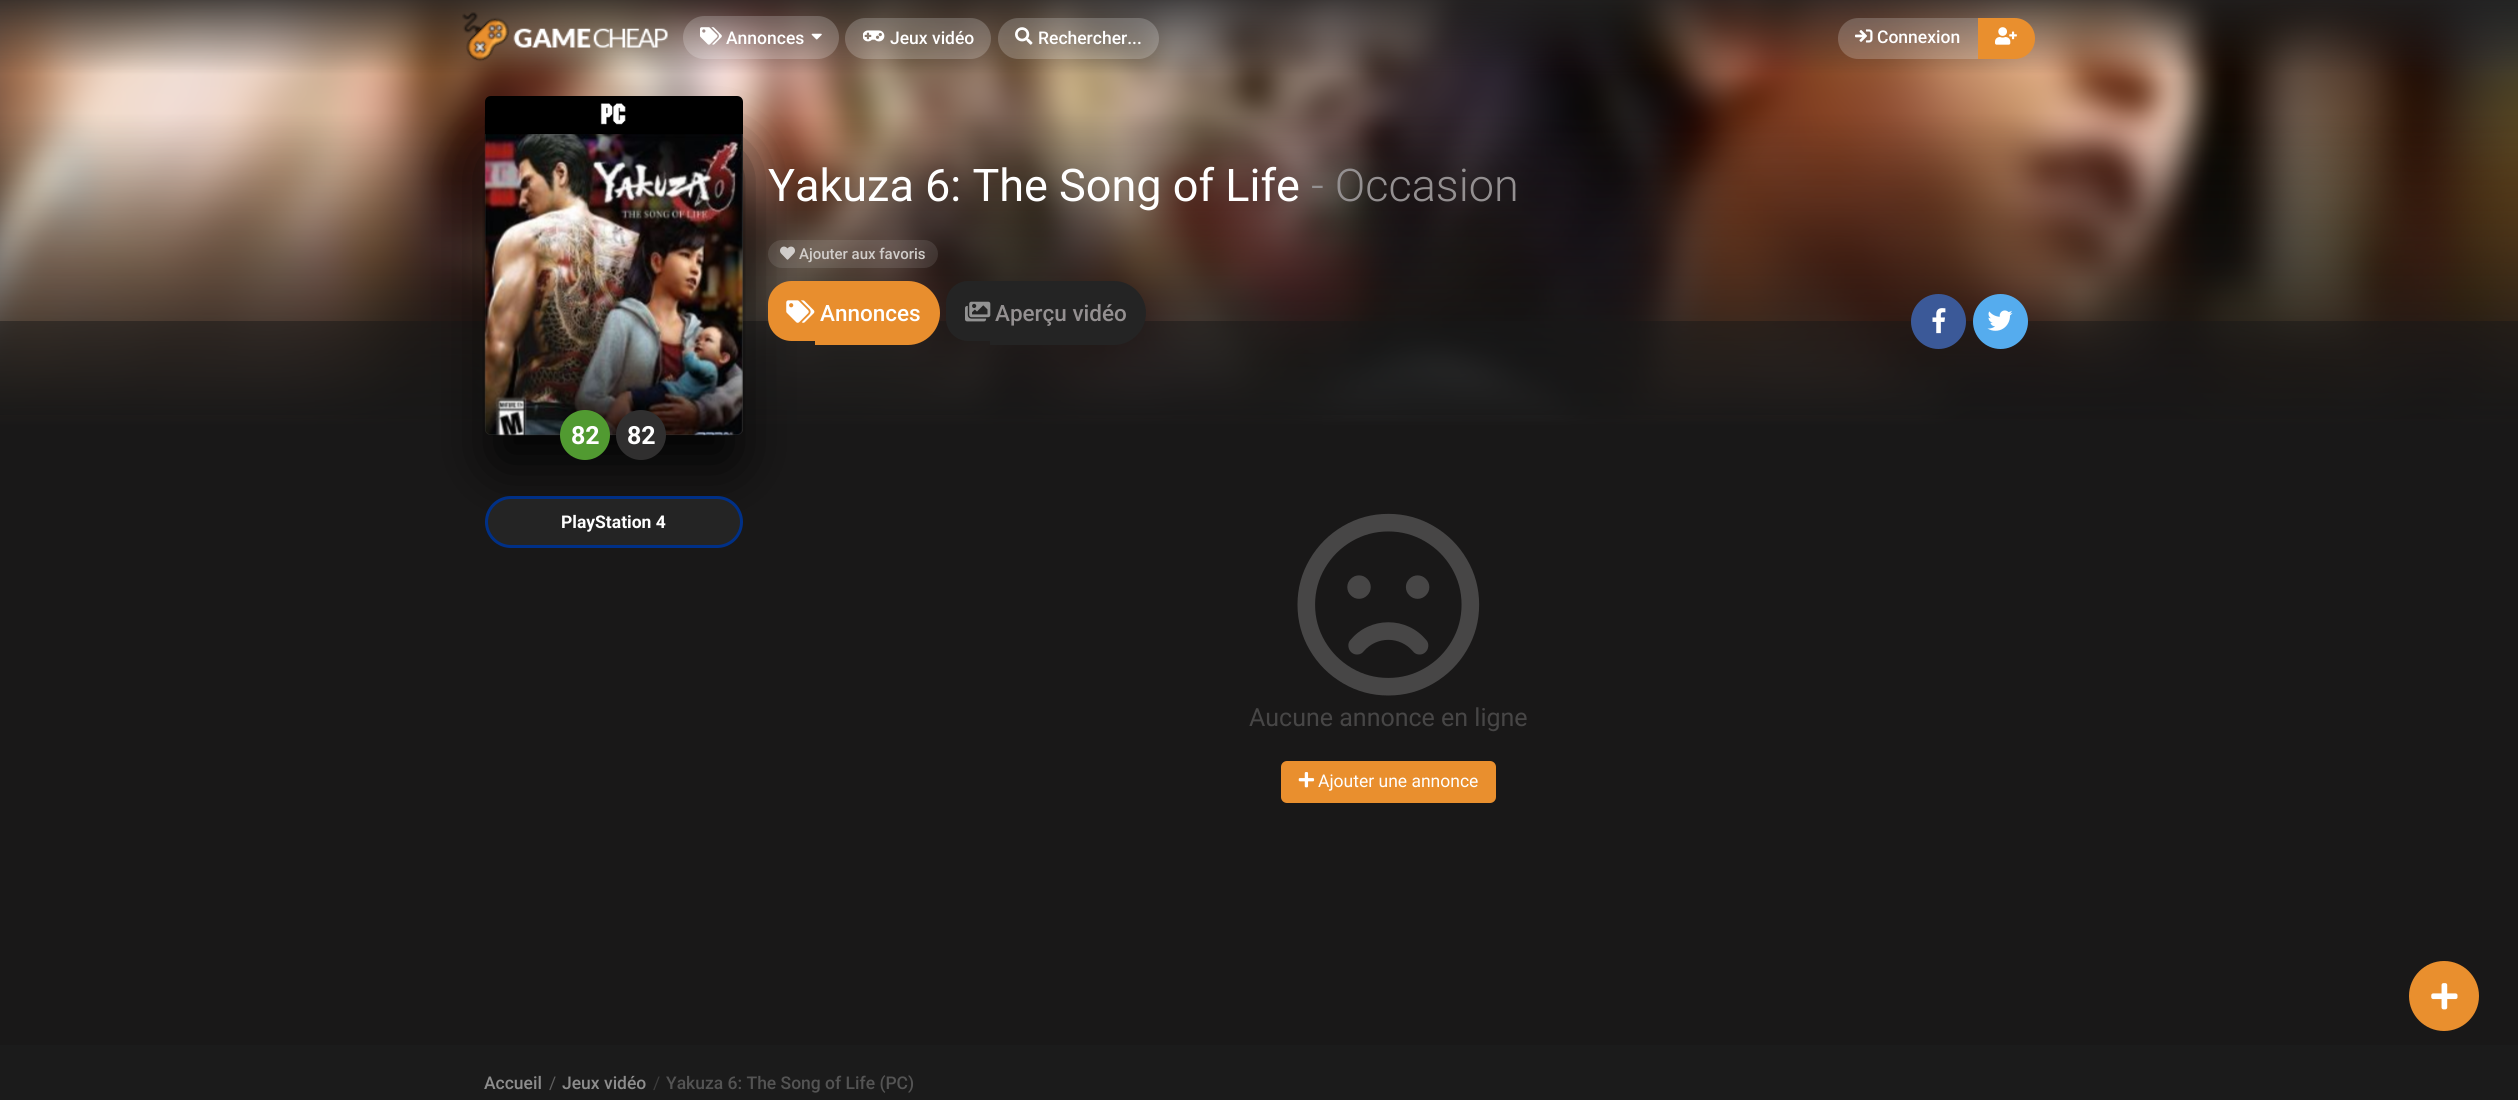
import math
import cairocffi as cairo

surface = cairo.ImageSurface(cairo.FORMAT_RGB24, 2518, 1100)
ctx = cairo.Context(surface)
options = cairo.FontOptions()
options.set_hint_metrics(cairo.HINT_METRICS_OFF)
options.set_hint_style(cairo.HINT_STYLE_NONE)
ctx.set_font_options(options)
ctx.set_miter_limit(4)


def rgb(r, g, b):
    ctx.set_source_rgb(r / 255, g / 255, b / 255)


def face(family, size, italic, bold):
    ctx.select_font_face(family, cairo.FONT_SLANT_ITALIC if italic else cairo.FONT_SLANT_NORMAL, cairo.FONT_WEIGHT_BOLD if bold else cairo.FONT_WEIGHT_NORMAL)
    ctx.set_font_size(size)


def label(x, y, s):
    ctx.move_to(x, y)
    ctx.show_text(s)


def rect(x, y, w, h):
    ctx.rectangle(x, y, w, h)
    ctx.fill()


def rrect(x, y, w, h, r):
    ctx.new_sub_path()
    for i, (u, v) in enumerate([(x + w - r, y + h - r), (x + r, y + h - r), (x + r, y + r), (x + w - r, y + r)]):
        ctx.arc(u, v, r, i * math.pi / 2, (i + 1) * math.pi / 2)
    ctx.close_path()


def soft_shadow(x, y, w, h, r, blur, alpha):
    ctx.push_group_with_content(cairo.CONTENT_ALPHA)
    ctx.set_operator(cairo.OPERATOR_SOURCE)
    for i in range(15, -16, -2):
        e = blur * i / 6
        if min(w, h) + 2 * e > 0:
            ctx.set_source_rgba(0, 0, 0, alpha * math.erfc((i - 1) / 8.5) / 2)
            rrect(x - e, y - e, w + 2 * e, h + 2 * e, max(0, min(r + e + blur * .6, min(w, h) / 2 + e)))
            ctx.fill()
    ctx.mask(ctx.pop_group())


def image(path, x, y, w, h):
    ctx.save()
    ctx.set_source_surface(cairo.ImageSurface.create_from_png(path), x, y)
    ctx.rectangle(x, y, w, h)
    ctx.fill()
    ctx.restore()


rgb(25, 24, 24)
ctx.paint()
image('image0.png', 0, 0, 2518, 613)
ctx.set_source_rgba(0.098, 0.094, 0.094, 0.5)
rect(0, 321, 2518, 94)
image('image1.png', 462, 12, 207, 50)
ctx.set_source_rgba(1, 1, 1, 0.2)
rrect(683, 16, 156, 43, 21.5)
ctx.fill()
image('image2.png', 700, 27, 22, 18)
face('Roboto Medium', 17.5, 0, 0)
rgb(255, 255, 255)
label(726, 44, 'Annonces')
image('image3.png', 811, 33, 11, 7)
ctx.set_source_rgba(1, 1, 1, 0.2)
rrect(845, 18, 146, 41, 20.5)
ctx.fill()
image('image4.png', 863, 30, 22, 12)
rgb(255, 255, 255)
label(890, 44, 'Jeux vidéo')
ctx.set_source_rgba(1, 1, 1, 0.2)
rrect(998, 18, 161, 41, 20.5)
ctx.fill()
image('image5.png', 1015, 27, 18, 18)
rgb(255, 255, 255)
label(1038, 44, 'Rechercher...')
ctx.set_source_rgba(1, 1, 1, 0.2)
ctx.new_path()
ctx.move_to(1858.5, 18)
ctx.line_to(1978, 18)
ctx.line_to(1978, 59)
ctx.line_to(1858.5, 59)
ctx.curve_to(1847, 59, 1838, 50, 1838, 38.5)
ctx.curve_to(1838, 27, 1847, 18, 1858.5, 18)
ctx.close_path()
ctx.fill()
image('image6.png', 1855, 29, 18, 14)
rgb(255, 255, 255)
label(1877, 43, 'Connexion')
rgb(233, 143, 46)
ctx.new_path()
ctx.move_to(1978, 18)
ctx.line_to(2014.5, 18)
ctx.curve_to(2026, 18, 2035, 27, 2035, 38.5)
ctx.curve_to(2035, 50, 2026, 59, 2014.5, 59)
ctx.line_to(1978, 59)
ctx.close_path()
ctx.fill()
image('image7.png', 1995, 27, 22, 18)
rgb(0, 0, 0)
soft_shadow(498, 163, 232, 297, 0, 31, 1)
face('Roboto', 45, 0, 0)
rgb(255, 255, 255)
label(768, 201, 'Yakuza 6: The Song of Life')
face('Roboto Light', 45, 0, 0)
rgb(148, 144, 145)
label(1311, 201, '- Occasion')
ctx.set_source_rgba(1, 1, 1, 0.1)
rrect(768, 240, 170, 28, 14)
ctx.fill()
image('image8.png', 780, 246, 15, 14)
face('Roboto Medium', 15, 0, 0)
rgb(209, 205, 202)
label(799, 259, 'Ajouter aux favoris')
rgb(56, 56, 56)
rrect(485, 113, 258, 322, 6)
ctx.fill()
image('image10.png', 484, 116, 259, 320)
rgb(0, 0, 0)
ctx.new_path()
ctx.move_to(491, 96)
ctx.line_to(737, 96)
ctx.curve_to(740.5, 96, 743, 98.5, 743, 102)
ctx.line_to(743, 134)
ctx.line_to(485, 134)
ctx.line_to(485, 102)
ctx.curve_to(485, 98.5, 487.5, 96, 491, 96)
ctx.close_path()
ctx.fill()
image('image9.png', 600, 103, 26, 22)
rgb(81, 154, 49)
ctx.arc(585, 435, 25, 0, 2 * math.pi)
ctx.fill()
face('Roboto', 25, 0, 1)
rgb(255, 255, 255)
label(571, 444, '82')
rgb(48, 47, 47)
ctx.new_path()
ctx.arc(641, 435, 25, 0, 2 * math.pi)
ctx.fill()
rgb(255, 255, 255)
label(627, 444, '82')
rgb(36, 36, 36)
rrect(486.5, 497.5, 255, 49, 24.5)
ctx.fill_preserve()
rgb(0, 48, 135)
ctx.set_line_width(3)
ctx.stroke()
face('Roboto', 17.5, 0, 1)
rgb(255, 255, 255)
label(561, 528, 'PlayStation 4')
rgb(232, 142, 46)
ctx.new_path()
ctx.move_to(791.5, 281)
ctx.line_to(815, 281)
ctx.line_to(815, 341)
ctx.line_to(791.5, 341)
ctx.curve_to(778.5, 341, 768, 330.5, 768, 317.5)
ctx.line_to(768, 304.5)
ctx.curve_to(768, 291.5, 778.5, 281, 791.5, 281)
ctx.close_path()
ctx.fill()
ctx.new_path()
ctx.move_to(815, 281)
ctx.line_to(908, 281)
ctx.curve_to(925.5, 281, 940, 295.5, 940, 313)
ctx.curve_to(940, 330.5, 925.5, 345, 908, 345)
ctx.line_to(815, 345)
ctx.close_path()
ctx.fill()
image('image11.png', 786, 300, 29, 23)
face('Roboto Medium', 22.5, 0, 0)
rgb(255, 255, 255)
label(820, 321, 'Annonces')
rgb(36, 36, 36)
ctx.new_path()
ctx.move_to(968, 281)
ctx.line_to(990, 281)
ctx.line_to(990, 341)
ctx.line_to(968, 341)
ctx.curve_to(956, 341, 946, 331, 946, 319)
ctx.line_to(946, 303)
ctx.curve_to(946, 291, 956, 281, 968, 281)
ctx.close_path()
ctx.fill()
ctx.new_path()
ctx.move_to(990, 281)
ctx.line_to(1114, 281)
ctx.curve_to(1131.5, 281, 1146, 295.5, 1146, 313)
ctx.curve_to(1146, 330.5, 1131.5, 345, 1114, 345)
ctx.line_to(990, 345)
ctx.close_path()
ctx.fill()
image('image12.png', 965, 301, 26, 21)
rgb(148, 144, 145)
label(995, 321, 'Aperçu vidéo')
rgb(59, 89, 152)
ctx.new_path()
ctx.arc(1938.5, 321.5, 27.5, 0, 2 * math.pi)
ctx.fill()
image('image13.png', 1932, 308, 14, 26)
rgb(85, 172, 238)
ctx.arc(2000.5, 321.5, 27.5, 0, 2 * math.pi)
ctx.fill()
image('image14.png', 1987, 310, 26, 21)
image('image15.png', 1297, 513, 183, 183)
face('Roboto', 25, 0, 0)
rgb(71, 70, 70)
label(1249, 726, 'Aucune annonce en ligne')
rgb(233, 143, 46)
rrect(1281, 761, 215, 42, 6)
ctx.fill()
image('image16.png', 1298, 772, 17, 16)
face('Roboto', 17.5, 0, 0)
rgb(255, 255, 255)
label(1318, 787, 'Ajouter une annonce')
rgb(233, 143, 46)
ctx.new_path()
ctx.arc(2444, 996, 35, 0, 2 * math.pi)
ctx.fill()
image('image17.png', 2431, 983, 27, 27)
rgb(27, 27, 27)
rect(0, 1045, 2518, 55)
face('Roboto Medium', 17.5, 0, 0)
rgb(141, 141, 141)
label(484, 1089, 'Accueil')
face('Roboto', 17.5, 0, 0)
rgb(95, 95, 95)
label(549, 1089, '/')
face('Roboto Medium', 17.5, 0, 0)
rgb(141, 141, 141)
label(562, 1089, 'Jeux vidéo')
face('Roboto', 17.5, 0, 0)
rgb(61, 61, 61)
label(653, 1089, '/')
face('Roboto Medium', 17.5, 0, 0)
rgb(84, 84, 84)
label(666, 1089, 'Yakuza 6: The Song of Life (PC)')
surface.write_to_png('render.png')
